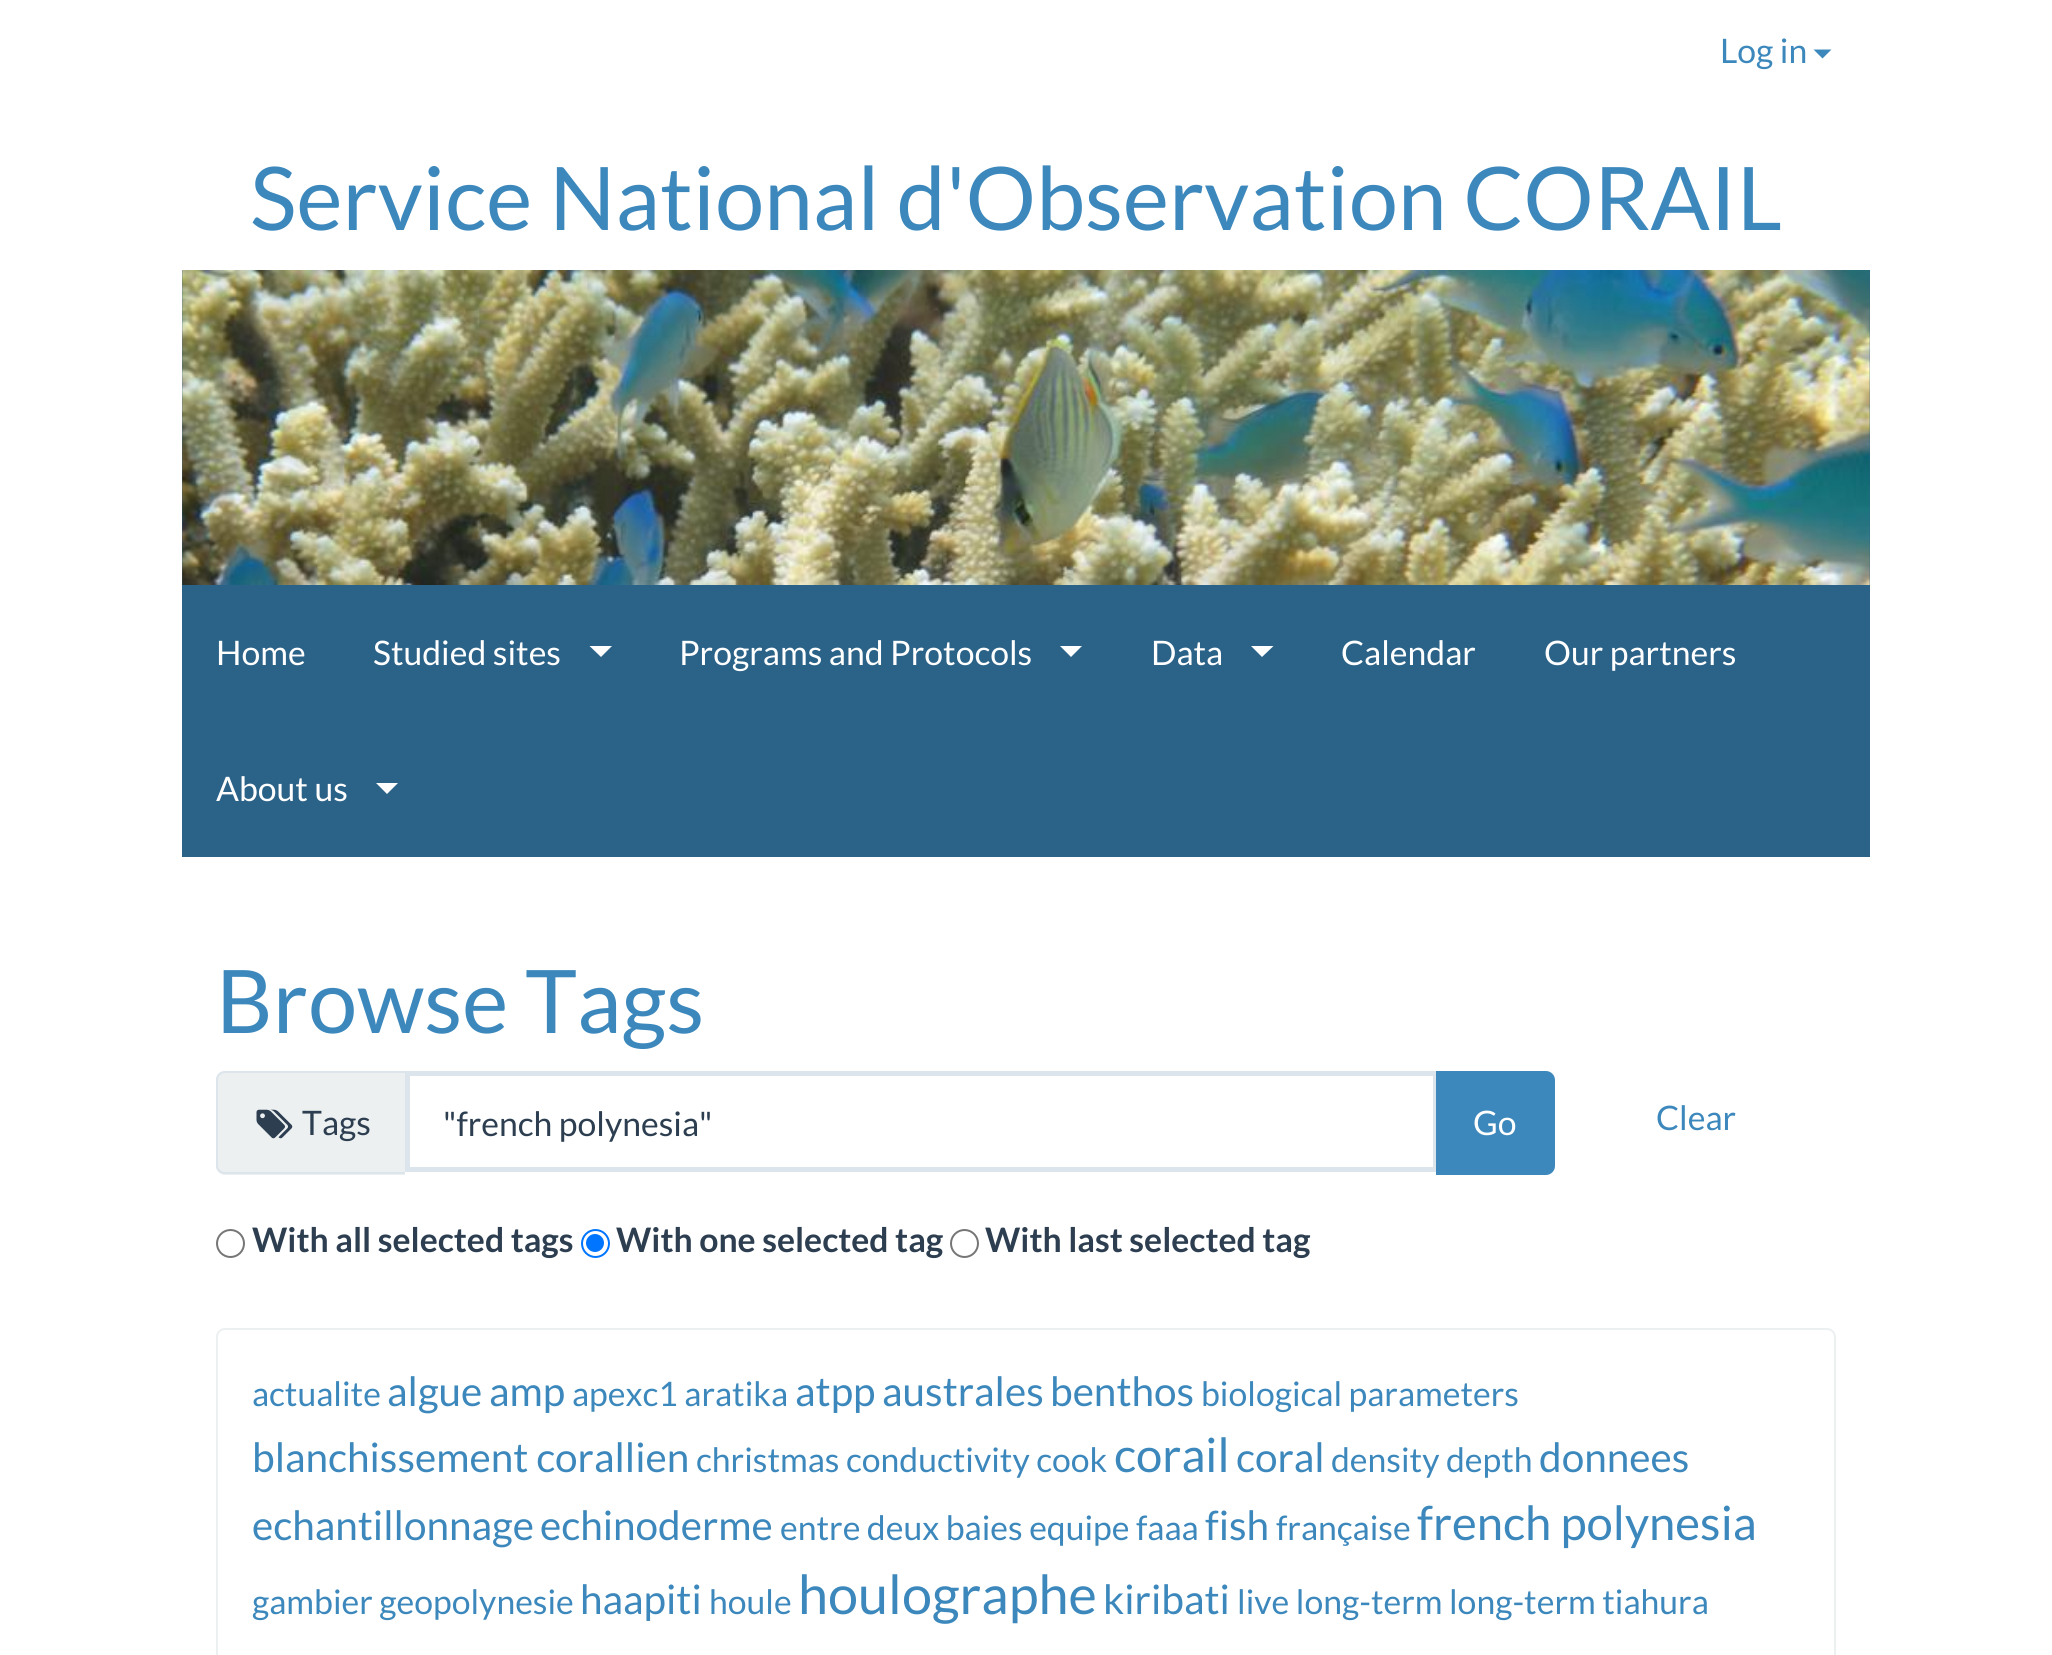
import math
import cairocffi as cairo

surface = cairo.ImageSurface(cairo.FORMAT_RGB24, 2052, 1655)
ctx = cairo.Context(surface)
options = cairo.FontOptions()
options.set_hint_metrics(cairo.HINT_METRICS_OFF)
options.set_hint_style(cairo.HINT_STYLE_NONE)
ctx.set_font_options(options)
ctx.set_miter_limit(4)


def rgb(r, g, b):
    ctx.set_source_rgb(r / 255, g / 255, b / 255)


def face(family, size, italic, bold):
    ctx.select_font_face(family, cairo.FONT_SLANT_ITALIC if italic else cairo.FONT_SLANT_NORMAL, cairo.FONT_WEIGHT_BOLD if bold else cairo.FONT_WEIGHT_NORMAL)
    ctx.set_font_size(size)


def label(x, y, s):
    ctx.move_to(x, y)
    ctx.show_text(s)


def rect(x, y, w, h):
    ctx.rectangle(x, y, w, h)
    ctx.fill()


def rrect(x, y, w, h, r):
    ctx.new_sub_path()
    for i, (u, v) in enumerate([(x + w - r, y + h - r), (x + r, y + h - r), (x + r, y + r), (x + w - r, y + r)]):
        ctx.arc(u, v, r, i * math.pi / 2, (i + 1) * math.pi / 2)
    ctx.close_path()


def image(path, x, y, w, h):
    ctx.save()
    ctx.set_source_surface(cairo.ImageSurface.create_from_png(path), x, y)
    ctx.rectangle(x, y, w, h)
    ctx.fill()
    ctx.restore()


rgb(255, 255, 255)
ctx.paint()
face('Lato', 33.75, 0, 0)
rgb(60, 136, 188)
label(1720, 63, 'Log in')
ctx.new_path()
ctx.move_to(1813.5, 49.5)
ctx.line_to(1831.5, 49.5)
ctx.line_to(1822.5, 58.5)
ctx.close_path()
ctx.fill()
face('Lato', 87.75, 0, 0)
label(250, 230, 'Service National d\'Observation CORAIL')
rgb(43, 98, 136)
rect(182, 270, 1688, 587)
image('image0.png', 182, 270, 1688, 315)
face('Lato', 33.75, 0, 0)
rgb(255, 255, 255)
label(216, 665, 'Home')
label(373, 665, 'Studied sites')
ctx.new_path()
ctx.move_to(589.5, 646)
ctx.line_to(612, 646)
ctx.line_to(601, 657)
ctx.close_path()
ctx.fill()
label(679, 665, 'Programs and Protocols')
ctx.new_path()
ctx.move_to(1060, 646)
ctx.line_to(1082, 646)
ctx.line_to(1071, 657)
ctx.close_path()
ctx.fill()
label(1151, 665, 'Data')
ctx.new_path()
ctx.move_to(1251, 646)
ctx.line_to(1273.5, 646)
ctx.line_to(1262, 657)
ctx.close_path()
ctx.fill()
label(1341, 665, 'Calendar')
label(1544, 665, 'Our partners')
label(216, 801, 'About us')
ctx.new_path()
ctx.move_to(376, 783)
ctx.line_to(398, 783)
ctx.line_to(387, 794)
ctx.close_path()
ctx.fill()
face('Lato', 87.75, 0, 0)
rgb(60, 136, 188)
label(216, 1033, 'Browse Tags')
rgb(236, 240, 241)
ctx.new_path()
ctx.move_to(225, 1071)
ctx.line_to(405, 1071)
ctx.line_to(405, 1175)
ctx.line_to(225, 1175)
ctx.curve_to(220, 1175, 216, 1171, 216, 1166)
ctx.line_to(216, 1080)
ctx.curve_to(216, 1075, 220, 1071, 225, 1071)
ctx.close_path()
ctx.fill()
rgb(220, 228, 236)
ctx.set_fill_rule(cairo.FILL_RULE_EVEN_ODD)
ctx.new_path()
ctx.move_to(225, 1071)
ctx.line_to(405, 1071)
ctx.line_to(405, 1174)
ctx.line_to(225, 1174)
ctx.curve_to(220, 1174, 216, 1170, 216, 1166)
ctx.line_to(216, 1080)
ctx.curve_to(216, 1075, 220, 1071, 225, 1071)
ctx.close_path()
ctx.move_to(225, 1073)
ctx.line_to(405, 1073)
ctx.line_to(405, 1172)
ctx.line_to(225, 1172)
ctx.curve_to(221, 1172, 218, 1169, 218, 1166)
ctx.line_to(218, 1080)
ctx.curve_to(218, 1076, 221, 1073, 225, 1073)
ctx.close_path()
ctx.fill()
image('image1.png', 256, 1109, 37, 30)
face('Lato', 33.75, 0, 0)
rgb(44, 62, 80)
label(302, 1135, 'Tags')
ctx.rectangle(407.5, 1073.5, 1028, 96)
rgb(220, 228, 236)
ctx.set_line_width(5)
ctx.stroke()
rgb(44, 62, 80)
label(443, 1136, '"french polynesia"')
rgb(60, 136, 188)
ctx.new_path()
ctx.move_to(1438.5, 1073.5)
ctx.line_to(1546, 1073.5)
ctx.curve_to(1549.5, 1073.5, 1552.5, 1076.5, 1552.5, 1080)
ctx.line_to(1552.5, 1166)
ctx.curve_to(1552.5, 1169.5, 1549.5, 1172.5, 1546, 1172.5)
ctx.line_to(1438.5, 1172.5)
ctx.close_path()
ctx.fill_preserve()
ctx.stroke()
rgb(255, 255, 255)
label(1473, 1135, 'Go')
rgb(60, 136, 188)
label(1656, 1130, 'Clear')
ctx.new_path()
ctx.arc(230.5, 1243.5, 13.5, 0, 2 * math.pi)
rgb(118, 118, 118)
ctx.set_line_width(2)
ctx.stroke()
face('Lato', 33.75, 0, 1)
rgb(44, 62, 80)
label(252, 1252, 'With all selected tags')
ctx.new_path()
ctx.arc(595.5, 1243.5, 13.5, 0, 2 * math.pi)
rgb(0, 117, 255)
ctx.stroke()
ctx.arc(595, 1243, 9, 0, 2 * math.pi)
ctx.fill()
rgb(44, 62, 80)
label(616, 1252, 'With one selected tag')
ctx.new_path()
ctx.arc(964.5, 1243.5, 13.5, 0, 2 * math.pi)
rgb(118, 118, 118)
ctx.stroke()
rgb(44, 62, 80)
label(985, 1252, 'With last selected tag')
rrect(217, 1329, 1618, 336, 8)
rgb(236, 240, 241)
ctx.stroke()
face('Lato', 33.75, 0, 0)
rgb(60, 136, 188)
label(252, 1406, 'actualite')
face('Lato', 40.5, 0, 0)
label(387, 1406, 'algue')
label(489, 1406, 'amp')
face('Lato', 33.75, 0, 0)
label(572, 1406, 'apexc1 aratika')
face('Lato', 40.5, 0, 0)
label(795, 1406, 'atpp')
label(882, 1406, 'australes')
label(1050, 1406, 'benthos')
face('Lato', 33.75, 0, 0)
label(1201, 1406, 'biological parameters')
face('Lato', 40.5, 0, 0)
label(252, 1472, 'blanchissement corallien')
face('Lato', 33.75, 0, 0)
label(696, 1472, 'christmas conductivity cook')
face('Lato', 47.25, 0, 0)
label(1114, 1472, 'corail')
face('Lato', 40.5, 0, 0)
label(1236, 1472, 'coral')
face('Lato', 33.75, 0, 0)
label(1331, 1472, 'density depth')
face('Lato', 40.5, 0, 0)
label(1539, 1472, 'donnees')
label(252, 1540, 'echantillonnage')
label(540, 1540, 'echinoderme')
face('Lato', 33.75, 0, 0)
label(780, 1540, 'entre deux baies equipe faaa')
face('Lato', 40.5, 0, 0)
label(1205, 1540, 'fish')
face('Lato', 33.75, 0, 0)
label(1276, 1540, 'française')
face('Lato', 47.25, 0, 0)
label(1417, 1540, 'french polynesia')
face('Lato', 33.75, 0, 0)
label(252, 1614, 'gambier geopolynesie')
face('Lato', 40.5, 0, 0)
label(580, 1614, 'haapiti')
face('Lato', 33.75, 0, 0)
label(709, 1614, 'houle')
face('Lato', 54, 0, 0)
label(798, 1614, 'houlographe')
face('Lato', 40.5, 0, 0)
label(1103, 1614, 'kiribati')
face('Lato', 33.75, 0, 0)
label(1237, 1614, 'live long-term long-term tiahura')
surface.write_to_png('render.png')
